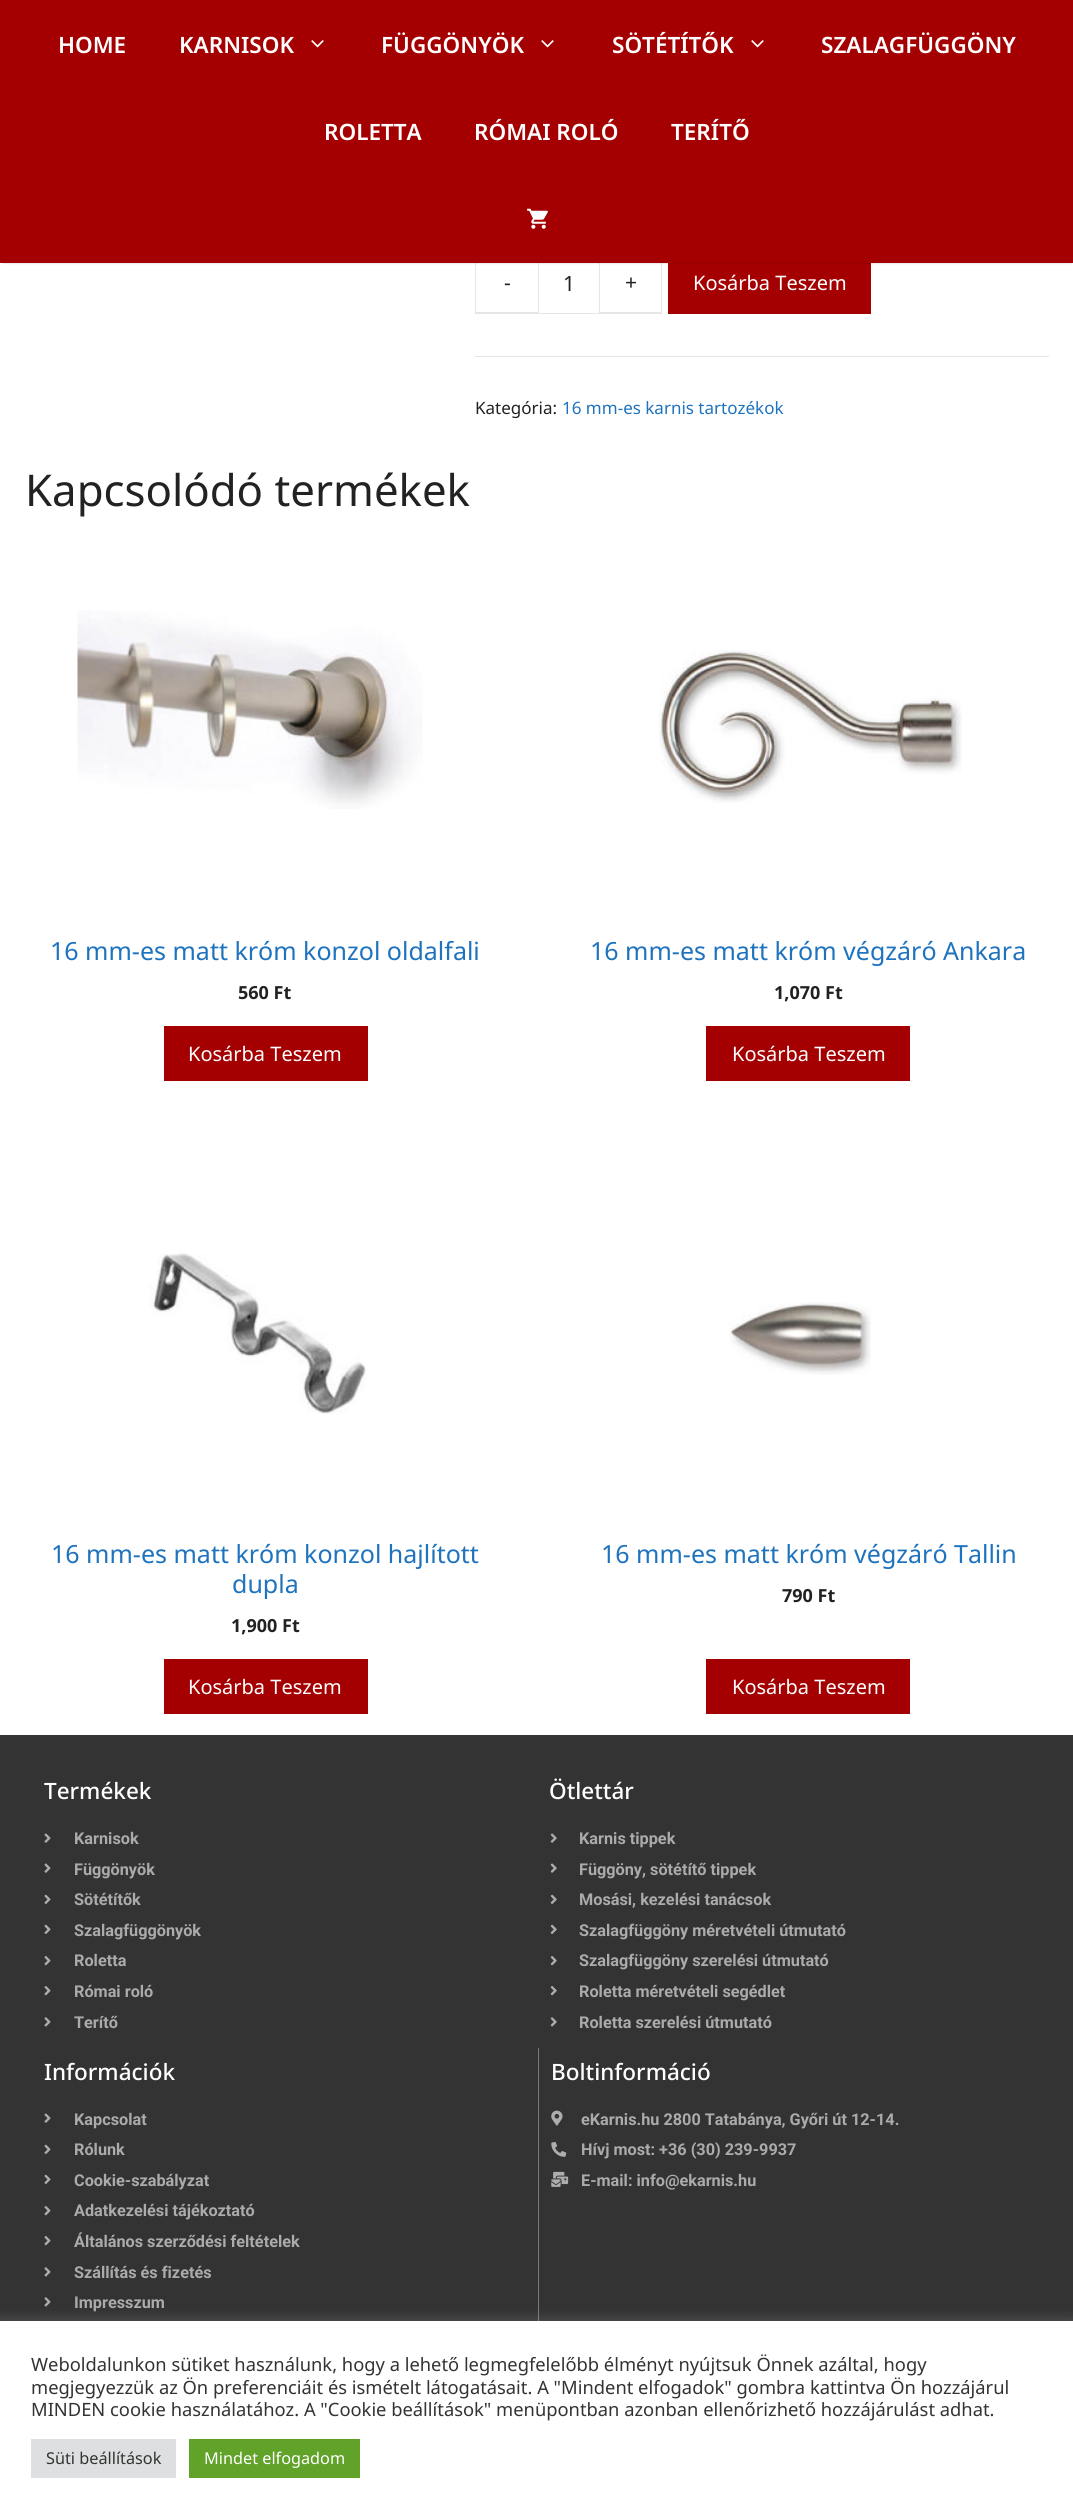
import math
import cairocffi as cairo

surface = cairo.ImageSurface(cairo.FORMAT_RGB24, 1073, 2514)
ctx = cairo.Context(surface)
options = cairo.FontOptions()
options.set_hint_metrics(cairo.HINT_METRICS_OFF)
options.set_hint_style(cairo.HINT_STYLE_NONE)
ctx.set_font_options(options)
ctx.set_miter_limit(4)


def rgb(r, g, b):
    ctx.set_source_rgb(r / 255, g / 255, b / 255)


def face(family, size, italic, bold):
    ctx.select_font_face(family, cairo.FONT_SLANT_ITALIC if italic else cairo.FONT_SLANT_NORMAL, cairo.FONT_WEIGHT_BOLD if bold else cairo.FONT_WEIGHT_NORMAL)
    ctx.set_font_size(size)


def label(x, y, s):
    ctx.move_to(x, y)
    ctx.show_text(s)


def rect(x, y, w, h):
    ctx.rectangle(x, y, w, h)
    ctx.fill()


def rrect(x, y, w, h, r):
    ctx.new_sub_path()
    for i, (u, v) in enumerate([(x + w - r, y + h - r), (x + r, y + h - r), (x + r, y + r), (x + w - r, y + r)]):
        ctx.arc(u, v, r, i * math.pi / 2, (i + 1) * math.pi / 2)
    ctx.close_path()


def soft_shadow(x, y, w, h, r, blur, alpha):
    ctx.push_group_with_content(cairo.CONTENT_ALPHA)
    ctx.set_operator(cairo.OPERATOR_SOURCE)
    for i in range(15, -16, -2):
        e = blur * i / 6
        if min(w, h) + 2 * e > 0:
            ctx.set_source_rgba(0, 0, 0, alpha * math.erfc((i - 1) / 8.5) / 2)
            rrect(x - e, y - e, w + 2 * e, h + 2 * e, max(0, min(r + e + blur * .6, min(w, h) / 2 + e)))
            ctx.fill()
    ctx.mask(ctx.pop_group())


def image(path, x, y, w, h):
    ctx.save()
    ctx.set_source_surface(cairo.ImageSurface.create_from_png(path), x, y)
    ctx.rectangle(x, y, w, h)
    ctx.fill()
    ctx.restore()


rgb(255, 255, 255)
ctx.paint()
rgb(230, 230, 230)
ctx.new_path()
ctx.move_to(538, 314)
ctx.line_to(475, 314)
ctx.line_to(476, 312)
ctx.line_to(538, 312)
ctx.close_path()
ctx.fill()
ctx.set_source_rgba(0, 0, 0, 0.1)
ctx.new_path()
ctx.move_to(475, 314)
ctx.line_to(475, 251)
ctx.line_to(476, 252)
ctx.line_to(476, 312)
ctx.close_path()
ctx.fill()
ctx.rectangle(538.5, 251.5, 61, 62)
rgb(230, 230, 230)
ctx.set_line_width(1)
ctx.stroke()
ctx.set_source_rgba(0, 0, 0, 0.1)
ctx.new_path()
ctx.move_to(662, 251)
ctx.line_to(662, 314)
ctx.line_to(661, 312)
ctx.line_to(661, 252)
ctx.close_path()
ctx.fill()
rgb(164, 0, 1)
rect(668, 263, 203, 51)
rgb(0, 0, 0)
soft_shadow(3, 5, 1068, 258, 0, 1, 0.2)
rgb(164, 0, 1)
rect(0, 0, 1073, 263)
face('Noto Sans SemiBold', 22.5, 0, 0)
rgb(255, 255, 255)
label(58, 53, 'HOME')
label(179, 53, 'KARNISOK')
image('image0.png', 311, 40, 13, 8)
label(381, 53, 'FÜGGÖNYÖK')
image('image0.png', 541, 40, 13, 8)
label(612, 53, 'SÖTÉTÍTŐK')
image('image0.png', 751, 40, 13, 8)
label(821, 53, 'SZALAGFÜGGÖNY')
label(324, 140, 'ROLETTA')
label(474, 140, 'RÓMAI ROLÓ')
label(671, 140, 'TERÍTŐ')
image('image1.png', 527, 208, 21, 21)
face('Noto Sans', 21, 0, 0)
rgb(34, 34, 34)
label(504, 290, '-')
label(563, 291, '1')
ctx.set_source_rgba(0, 0, 0, 0.1)
ctx.new_path()
ctx.move_to(662, 314)
ctx.line_to(600, 314)
ctx.line_to(600, 312)
ctx.line_to(661, 312)
ctx.close_path()
ctx.fill()
rgb(34, 34, 34)
label(625, 290, '+')
face('Noto Sans', 20, 0, 0)
rgb(255, 255, 255)
label(693, 290, 'Kosárba Teszem')
rgb(230, 230, 230)
rect(475, 356, 574, 1)
face('Noto Sans', 17, 0, 0)
rgb(34, 34, 34)
label(475, 414, 'Kategória:')
rgb(30, 115, 190)
label(562, 414, '16 mm-es karnis tartozékok')
face('Noto Sans', 43.75, 0, 0)
rgb(34, 34, 34)
label(25, 506, 'Kapcsolódó termékek')
image('image2.png', 77, 610, 346, 199)
face('Noto Sans', 25, 0, 0)
rgb(30, 115, 190)
label(50, 960, '16 mm-es matt króm konzol oldalfali')
face('Noto Sans', 18, 0, 1)
rgb(34, 34, 34)
label(238, 999, '560 Ft')
rgb(164, 0, 1)
rect(164, 1026, 204, 55)
face('Noto Sans', 20, 0, 0)
rgb(255, 255, 255)
label(188, 1061, 'Kosárba Teszem')
image('image3.png', 659, 650, 303, 153)
face('Noto Sans', 25, 0, 0)
rgb(30, 115, 190)
label(590, 960, '16 mm-es matt króm végzáró Ankara')
face('Noto Sans', 18, 0, 1)
rgb(34, 34, 34)
label(774, 999, '1,070 Ft')
rgb(164, 0, 1)
rect(706, 1026, 204, 55)
face('Noto Sans', 20, 0, 0)
rgb(255, 255, 255)
label(732, 1061, 'Kosárba Teszem')
image('image4.png', 149, 1253, 217, 161)
face('Noto Sans', 25, 0, 0)
rgb(30, 115, 190)
label(51, 1563, '16 mm-es matt króm konzol hajlított')
label(232, 1593, 'dupla')
face('Noto Sans', 18, 0, 1)
rgb(34, 34, 34)
label(231, 1632, '1,900 Ft')
rgb(164, 0, 1)
rect(164, 1659, 204, 55)
face('Noto Sans', 20, 0, 0)
rgb(255, 255, 255)
label(188, 1694, 'Kosárba Teszem')
image('image5.png', 729, 1302, 142, 73)
face('Noto Sans', 25, 0, 0)
rgb(30, 115, 190)
label(601, 1563, '16 mm-es matt króm végzáró Tallin')
face('Noto Sans', 18, 0, 1)
rgb(34, 34, 34)
label(782, 1602, '790 Ft')
rgb(164, 0, 1)
rect(706, 1659, 204, 55)
face('Noto Sans', 20, 0, 0)
rgb(255, 255, 255)
label(732, 1694, 'Kosárba Teszem')
rgb(51, 51, 51)
rect(0, 1735, 1073, 586)
face('Noto Sans Medium', 22.5, 0, 0)
rgb(255, 255, 255)
label(44, 1799, 'Termékek')
image('image6.png', 44, 1833, 7, 10)
face('Roboto', 16.25, 0, 1)
rgb(171, 171, 171)
label(74, 1844, 'Karnisok')
image('image6.png', 44, 1863, 7, 10)
label(74, 1875, 'Függönyök')
image('image7.png', 44, 1894, 7, 10)
label(74, 1905, 'Sötétítők')
image('image7.png', 44, 1924, 7, 10)
label(74, 1936, 'Szalagfüggönyök')
image('image8.png', 44, 1956, 7, 10)
label(74, 1966, 'Roletta')
image('image8.png', 44, 1986, 7, 10)
label(74, 1997, 'Római roló')
image('image9.png', 44, 2017, 7, 10)
label(74, 2028, 'Terítő')
face('Noto Sans Medium', 22.5, 0, 0)
rgb(255, 255, 255)
label(549, 1799, 'Ötlettár')
image('image10.png', 550, 1833, 7, 10)
face('Roboto', 16.25, 0, 1)
rgb(171, 171, 171)
label(579, 1844, 'Karnis tippek')
image('image10.png', 550, 1863, 7, 10)
label(579, 1875, 'Függöny, sötétítő tippek')
image('image11.png', 550, 1894, 7, 10)
label(579, 1905, 'Mosási, kezelési tanácsok')
image('image11.png', 550, 1924, 7, 10)
label(579, 1936, 'Szalagfüggöny méretvételi útmutató')
image('image12.png', 550, 1956, 7, 10)
label(579, 1966, 'Szalagfüggöny szerelési útmutató')
image('image12.png', 550, 1986, 7, 10)
label(579, 1997, 'Roletta méretvételi segédlet')
image('image13.png', 550, 2017, 7, 10)
label(579, 2028, 'Roletta szerelési útmutató')
face('Noto Sans Medium', 22.5, 0, 0)
rgb(255, 255, 255)
label(44, 2080, 'Információk')
image('image6.png', 44, 2113, 7, 10)
face('Roboto', 16.25, 0, 1)
rgb(171, 171, 171)
label(74, 2125, 'Kapcsolat')
image('image7.png', 44, 2144, 7, 10)
label(74, 2155, 'Rólunk')
image('image7.png', 44, 2174, 7, 10)
label(74, 2186, 'Cookie-szabályzat')
image('image8.png', 44, 2206, 7, 10)
label(74, 2216, 'Adatkezelési tájékoztató')
image('image8.png', 44, 2236, 7, 10)
label(74, 2247, 'Általános szerződési feltételek')
image('image9.png', 44, 2267, 7, 10)
label(74, 2278, 'Szállítás és fizetés')
image('image9.png', 44, 2297, 7, 10)
label(74, 2308, 'Impresszum')
rgb(122, 122, 122)
rect(538, 2048, 1, 280)
face('Noto Sans Medium', 22.5, 0, 0)
rgb(255, 255, 255)
label(551, 2080, 'Boltinformáció')
image('image14.png', 551, 2110, 12, 16)
face('Roboto', 16.25, 0, 1)
rgb(171, 171, 171)
label(581, 2125, 'eKarnis.hu 2800 Tatabánya, Győri út 12-14.')
image('image15.png', 551, 2142, 16, 15)
label(581, 2155, 'Hívj most: +36 (30) 239-9937')
image('image16.png', 551, 2171, 18, 16)
label(581, 2186, 'E-mail: info@ekarnis.hu')
rgb(172, 171, 171)
soft_shadow(0, 2320, 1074, 194, 0, 6, 0.3)
rgb(255, 255, 255)
rect(0, 2321, 1073, 193)
face('Noto Sans', 18.33, 0, 0)
rgb(51, 51, 51)
label(31, 2371, 'Weboldalunkon sütiket használunk, hogy a lehető legmegfelelőbb élményt nyújtsuk Önnek azáltal, hogy')
label(31, 2394, 'megjegyezzük az Ön preferenciáit és ismételt látogatásait. A "Mindent elfogadok" gombra kattintva Ön hozzájárul')
label(31, 2416, 'MINDEN cookie használatához. A "Cookie beállítások" menüpontban azonban ellenőrizhető hozzájárulást adhat.')
rgb(222, 223, 224)
rect(31, 2439, 145, 39)
face('Noto Sans', 16.25, 0, 0)
rgb(51, 51, 51)
label(46, 2464, 'Süti beállítások')
rgb(97, 162, 41)
rect(189, 2439, 171, 39)
rgb(255, 255, 255)
label(204, 2464, 'Mindet elfogadom')
surface.write_to_png('render.png')
